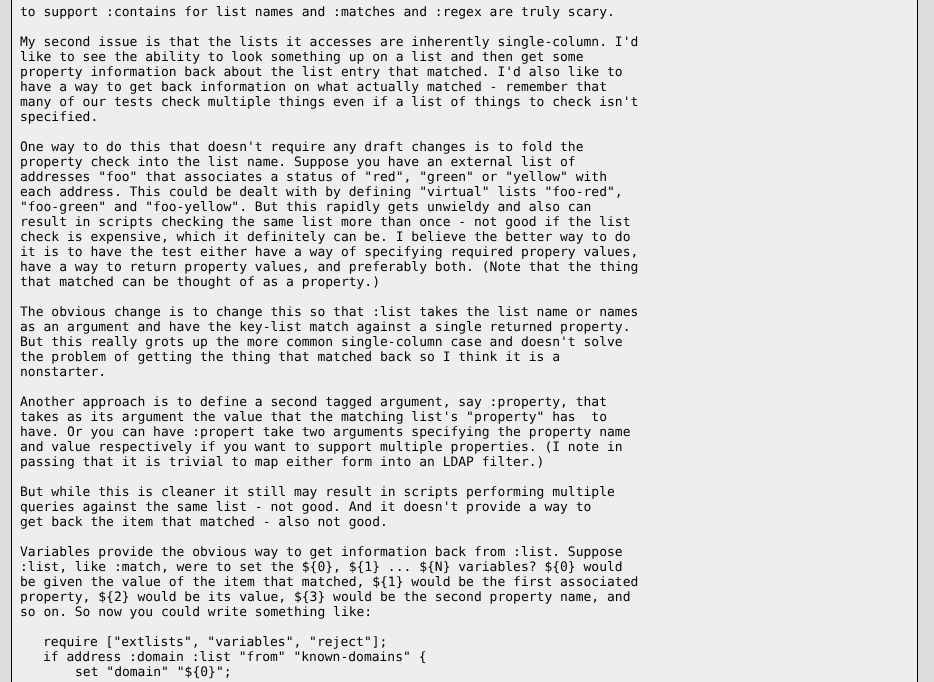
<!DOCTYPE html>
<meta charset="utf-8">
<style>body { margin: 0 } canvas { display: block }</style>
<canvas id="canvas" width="934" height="682"></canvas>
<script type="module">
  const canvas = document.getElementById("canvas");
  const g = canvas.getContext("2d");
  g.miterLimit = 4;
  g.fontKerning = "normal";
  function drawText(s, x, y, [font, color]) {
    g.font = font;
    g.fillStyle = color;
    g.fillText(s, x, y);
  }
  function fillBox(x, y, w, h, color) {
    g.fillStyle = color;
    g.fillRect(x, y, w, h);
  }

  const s1 = ["13px DejaVu Sans Mono", "#000000"];

  fillBox(0, 0, 934, 682, "#DDDDDD");
  g.fillStyle = "#EEEEEE";
  g.beginPath();
  g.rect(11.5, -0.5, 906, 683);
  g.fill();
  g.strokeStyle = "#000000";
  g.stroke();
  drawText("to support :contains for list names and :matches and :regex are truly scary.", 20, 16, s1);
  drawText("My second issue is that the lists it accesses are inherently single-column. I'd", 20, 46, s1);
  drawText("like to see the ability to look something up on a list and then get some", 20, 61, s1);
  drawText("property information back about the list entry that matched. I'd also like to", 20, 76, s1);
  drawText("have a way to get back information on what actually matched - remember that", 20, 91, s1);
  drawText("many of our tests check multiple things even if a list of things to check isn't", 20, 106, s1);
  drawText("specified.", 20, 121, s1);
  drawText("One way to do this that doesn't require any draft changes is to fold the", 20, 151, s1);
  drawText("property check into the list name. Suppose you have an external list of", 20, 166, s1);
  drawText("addresses \"foo\" that associates a status of \"red\", \"green\" or \"yellow\" with", 20, 181, s1);
  drawText("each address. This could be dealt with by defining \"virtual\" lists \"foo-red\",", 20, 196, s1);
  drawText("\"foo-green\" and \"foo-yellow\". But this rapidly gets unwieldy and also can", 20, 211, s1);
  drawText("result in scripts checking the same list more than once - not good if the list", 20, 226, s1);
  drawText("check is expensive, which it definitely can be. I believe the better way to do", 20, 241, s1);
  drawText("it is to have the test either have a way of specifying required propery values,", 20, 256, s1);
  drawText("have a way to return property values, and preferably both. (Note that the thing", 20, 271, s1);
  drawText("that matched can be thought of as a property.)", 20, 286, s1);
  drawText("The obvious change is to change this so that :list takes the list name or names", 20, 316, s1);
  drawText("as an argument and have the key-list match against a single returned property.", 20, 331, s1);
  drawText("But this really grots up the more common single-column case and doesn't solve", 20, 346, s1);
  drawText("the problem of getting the thing that matched back so I think it is a", 20, 361, s1);
  drawText("nonstarter.", 20, 376, s1);
  drawText("Another approach is to define a second tagged argument, say :property, that", 20, 406, s1);
  drawText("takes as its argument the value that the matching list's \"property\" has  to", 20, 421, s1);
  drawText("have. Or you can have :propert take two arguments specifying the property name", 20, 436, s1);
  drawText("and value respectively if you want to support multiple properties. (I note in", 20, 451, s1);
  drawText("passing that it is trivial to map either form into an LDAP filter.)", 20, 466, s1);
  drawText("But while this is cleaner it still may result in scripts performing multiple", 20, 496, s1);
  drawText("queries against the same list - not good. And it doesn't provide a way to", 20, 511, s1);
  drawText("get back the item that matched - also not good.", 20, 526, s1);
  drawText("Variables provide the obvious way to get information back from :list. Suppose", 20, 556, s1);
  drawText(":list, like :match, were to set the ${0}, ${1} ... ${N} variables? ${0} would", 20, 571, s1);
  drawText("be given the value of the item that matched, ${1} would be the first associated", 20, 586, s1);
  drawText("property, ${2} would be its value, ${3} would be the second property name, and", 20, 601, s1);
  drawText("so on. So now you could write something like:", 20, 616, s1);
  drawText("require [\"extlists\", \"variables\", \"reject\"];", 43, 646, s1);
  drawText("if address :domain :list \"from\" \"known-domains\" {", 43, 661, s1);
  drawText("set \"domain\" \"${0}\";", 75, 676, s1);
</script>
